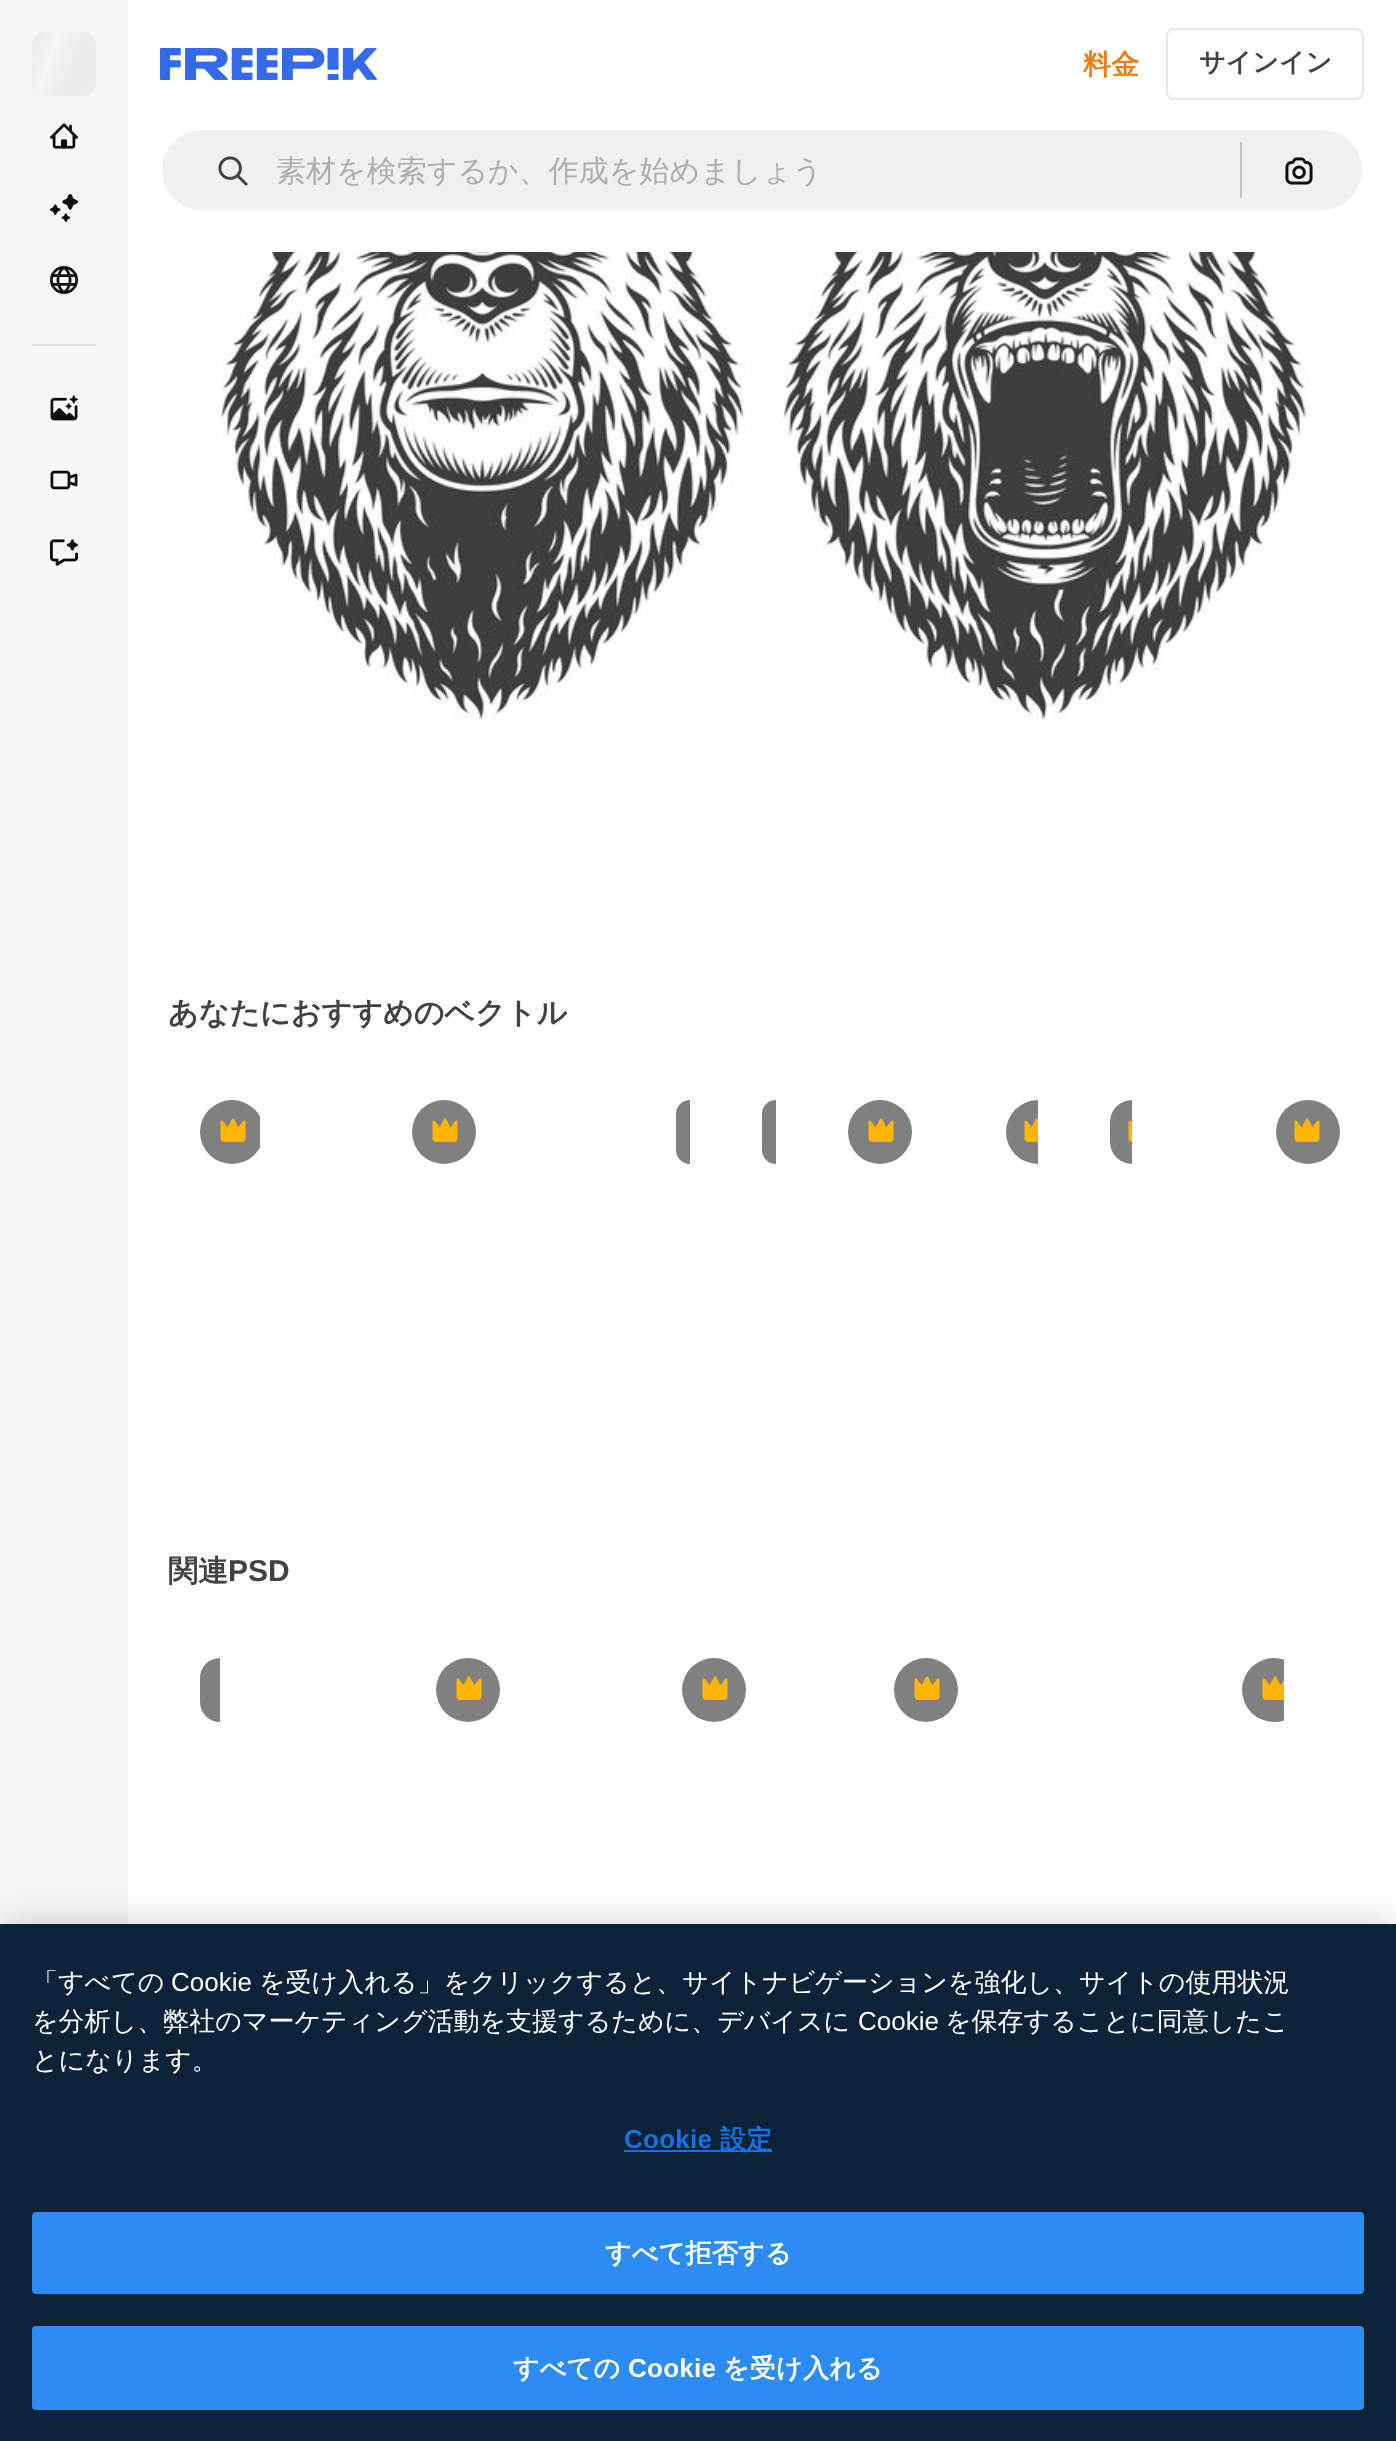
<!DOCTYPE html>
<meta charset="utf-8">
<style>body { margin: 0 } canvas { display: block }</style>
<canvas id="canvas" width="1396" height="2441"></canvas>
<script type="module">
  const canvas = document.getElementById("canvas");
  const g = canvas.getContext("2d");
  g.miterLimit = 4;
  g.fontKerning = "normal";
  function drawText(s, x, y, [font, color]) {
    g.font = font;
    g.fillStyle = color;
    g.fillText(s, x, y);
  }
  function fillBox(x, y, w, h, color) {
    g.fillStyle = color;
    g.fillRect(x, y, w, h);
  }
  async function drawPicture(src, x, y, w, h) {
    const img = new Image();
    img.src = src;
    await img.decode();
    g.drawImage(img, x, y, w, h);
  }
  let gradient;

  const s1 = ["bold 28px WenQuanYi Zen Hei", "#EA7E11"];
  const s2 = ["bold 26px WenQuanYi Zen Hei", "#424242"];
  const s3 = ["500 30px WenQuanYi Zen Hei", "#ADADAD"];
  const s4 = ["bold 30px WenQuanYi Zen Hei", "#424242"];
  const s5 = ["bold 30px Liberation Sans", "#424242"];
  const s6 = ["500 26px WenQuanYi Zen Hei", "#FFFFFF"];
  const s7 = ["26px Liberation Sans", "#FFFFFF"];
  const s8 = ["bold 26px Liberation Sans", "#1273EB"];
  const s9 = ["bold 26px WenQuanYi Zen Hei", "#1273EB"];
  const s10 = ["bold 26px WenQuanYi Zen Hei", "#FFFFFF"];
  const s11 = ["bold 26px Liberation Sans", "#FFFFFF"];

  fillBox(0, 0, 1396, 2441, "#FFFFFF");
  fillBox(0, 0, 128, 1924, "#F7F7F7");
  gradient = g.createLinearGradient(29, 40, 163, 88);
  gradient.addColorStop(0.08, "#ECECEC");
  gradient.addColorStop(0.18, "#F5F5F5");
  gradient.addColorStop(0.33, "#ECECEC");
  g.fillStyle = gradient;
  g.beginPath();
  g.roundRect(32, 32, 64, 64, 12);
  g.fill();
  await drawPicture("pic1.png", 50, 123, 28, 26);
  await drawPicture("pic2.png", 50, 194, 28, 28);
  await drawPicture("pic3.png", 50, 266, 28, 28);
  fillBox(32, 344, 64, 2, "#E0E0E0");
  await drawPicture("pic4.png", 50, 395, 28, 26);
  await drawPicture("pic5.png", 50, 470, 28, 20);
  await drawPicture("pic6.png", 50, 539, 28, 27);
  await drawPicture("pic7.png", 160, 48, 218, 32);
  drawText("料金", 1083, 74, s1);
  g.beginPath();
  g.roundRect(1167, 29, 196, 70, 7);
  g.strokeStyle = "#E7E7E7";
  g.lineWidth = 2;
  g.stroke();
  drawText("サインイン", 1199, 71, s2);
  g.fillStyle = "#F0F0F0";
  g.beginPath();
  g.roundRect(161, 129, 1202, 82, 41);
  g.fill();
  g.strokeStyle = "#FFFFFF";
  g.stroke();
  await drawPicture("pic8.png", 218, 156, 30, 30);
  drawText("素材を検索するか、作成を始めましょう", 276, 181, s3);
  fillBox(1240, 142, 2, 56, "#C3C3C3");
  await drawPicture("pic9.png", 1285, 157, 28, 28);
  await drawPicture("pic10.png", 220, 252, 1089, 469);
  drawText("あなたにおすすめのベクトル", 168, 1023, s4);
  g.save();
  g.beginPath();
  g.roundRect(168, 1068, 92, 400, 32);
  g.clip();
  g.fillStyle = "#808080";
  g.beginPath();
  g.arc(232, 1132, 32, 0, Math.PI * 2);
  g.fill();
  g.restore();
  await drawPicture("pic11.png", 220, 1118, 26, 24);
  g.fillStyle = "#808080";
  g.beginPath();
  g.arc(444, 1132, 32, 0, Math.PI * 2);
  g.fill();
  await drawPicture("pic11.png", 432, 1118, 26, 24);
  g.beginPath();
  g.roundRect(676, 1100, 14, 64, [32, 0, 0, 32]);
  g.fill();
  g.beginPath();
  g.roundRect(762, 1100, 14, 64, [32, 0, 0, 32]);
  g.fill();
  g.beginPath();
  g.arc(880, 1132, 32, 0, Math.PI * 2);
  g.fill();
  await drawPicture("pic11.png", 868, 1118, 26, 24);
  g.beginPath();
  g.roundRect(1006, 1100, 32, 64, [32, 0, 0, 32]);
  g.fill();
  await drawPicture("pic12.png", 1024, 1118, 14, 24);
  g.beginPath();
  g.roundRect(1110, 1100, 22, 64, [32, 0, 0, 32]);
  g.fill();
  await drawPicture("pic13.png", 1128, 1120, 4, 22);
  g.beginPath();
  g.arc(1308, 1132, 32, 0, Math.PI * 2);
  g.fill();
  await drawPicture("pic11.png", 1294, 1118, 26, 24);
  drawText("関連", 168, 1581, s4);
  drawText("PSD", 228, 1581, s5);
  g.fillStyle = "#808080";
  g.beginPath();
  g.roundRect(200, 1658, 20, 64, [32, 0, 0, 32]);
  g.fill();
  g.beginPath();
  g.arc(468, 1690, 32, 0, Math.PI * 2);
  g.fill();
  await drawPicture("pic11.png", 456, 1676, 26, 24);
  g.beginPath();
  g.arc(714, 1690, 32, 0, Math.PI * 2);
  g.fill();
  await drawPicture("pic11.png", 702, 1676, 26, 24);
  g.beginPath();
  g.arc(926, 1690, 32, 0, Math.PI * 2);
  g.fill();
  await drawPicture("pic11.png", 914, 1676, 26, 24);
  g.save();
  g.beginPath();
  g.roundRect(1210, 1626, 74, 400, 32);
  g.clip();
  g.beginPath();
  g.arc(1274, 1690, 32, 0, Math.PI * 2);
  g.fill();
  g.restore();
  await drawPicture("pic14.png", 1262, 1676, 22, 24);
  g.fillStyle = "rgba(0, 0, 0, 0.2)";
  g.filter = "blur(18px)";
  g.beginPath();
  g.rect(0, 1924, 1396, 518);
  g.fill();
  g.filter = "none";
  fillBox(0, 1924, 1396, 517, "#0B2239");
  drawText("「すべての", 32, 1991, s6);
  drawText("Cookie", 171, 1991, s7);
  drawText("を受け入れる」をクリックすると、サイトナビゲーションを強化し、サイトの使用状況", 259, 1991, s6);
  drawText("を分析し、弊社のマーケティング活動を支援するために、デバイスに", 32, 2030, s6);
  drawText("Cookie", 858, 2030, s7);
  drawText("を保存することに同意したこ", 945, 2030, s6);
  drawText("とになります。", 32, 2069, s6);
  g.letterSpacing = "0.25px";
  drawText("Cookie", 624, 2148, s8);
  fillBox(624, 2150, 148, 2, "#1273EB");
  drawText("設定", 720, 2148, s9);
  g.fillStyle = "#2C8CF4";
  g.beginPath();
  g.roundRect(33, 2213, 1330, 80, 3);
  g.fill();
  g.strokeStyle = "#2C8CF4";
  g.stroke();
  drawText("すべて拒否する", 605, 2262, s10);
  g.fillStyle = "#2C8CF4";
  g.beginPath();
  g.roundRect(33, 2327, 1330, 82, 3);
  g.fill();
  g.stroke();
  drawText("すべての", 513, 2377, s10);
  drawText("Cookie", 628, 2377, s11);
  drawText("を受け入れる", 723, 2377, s10);
</script>
